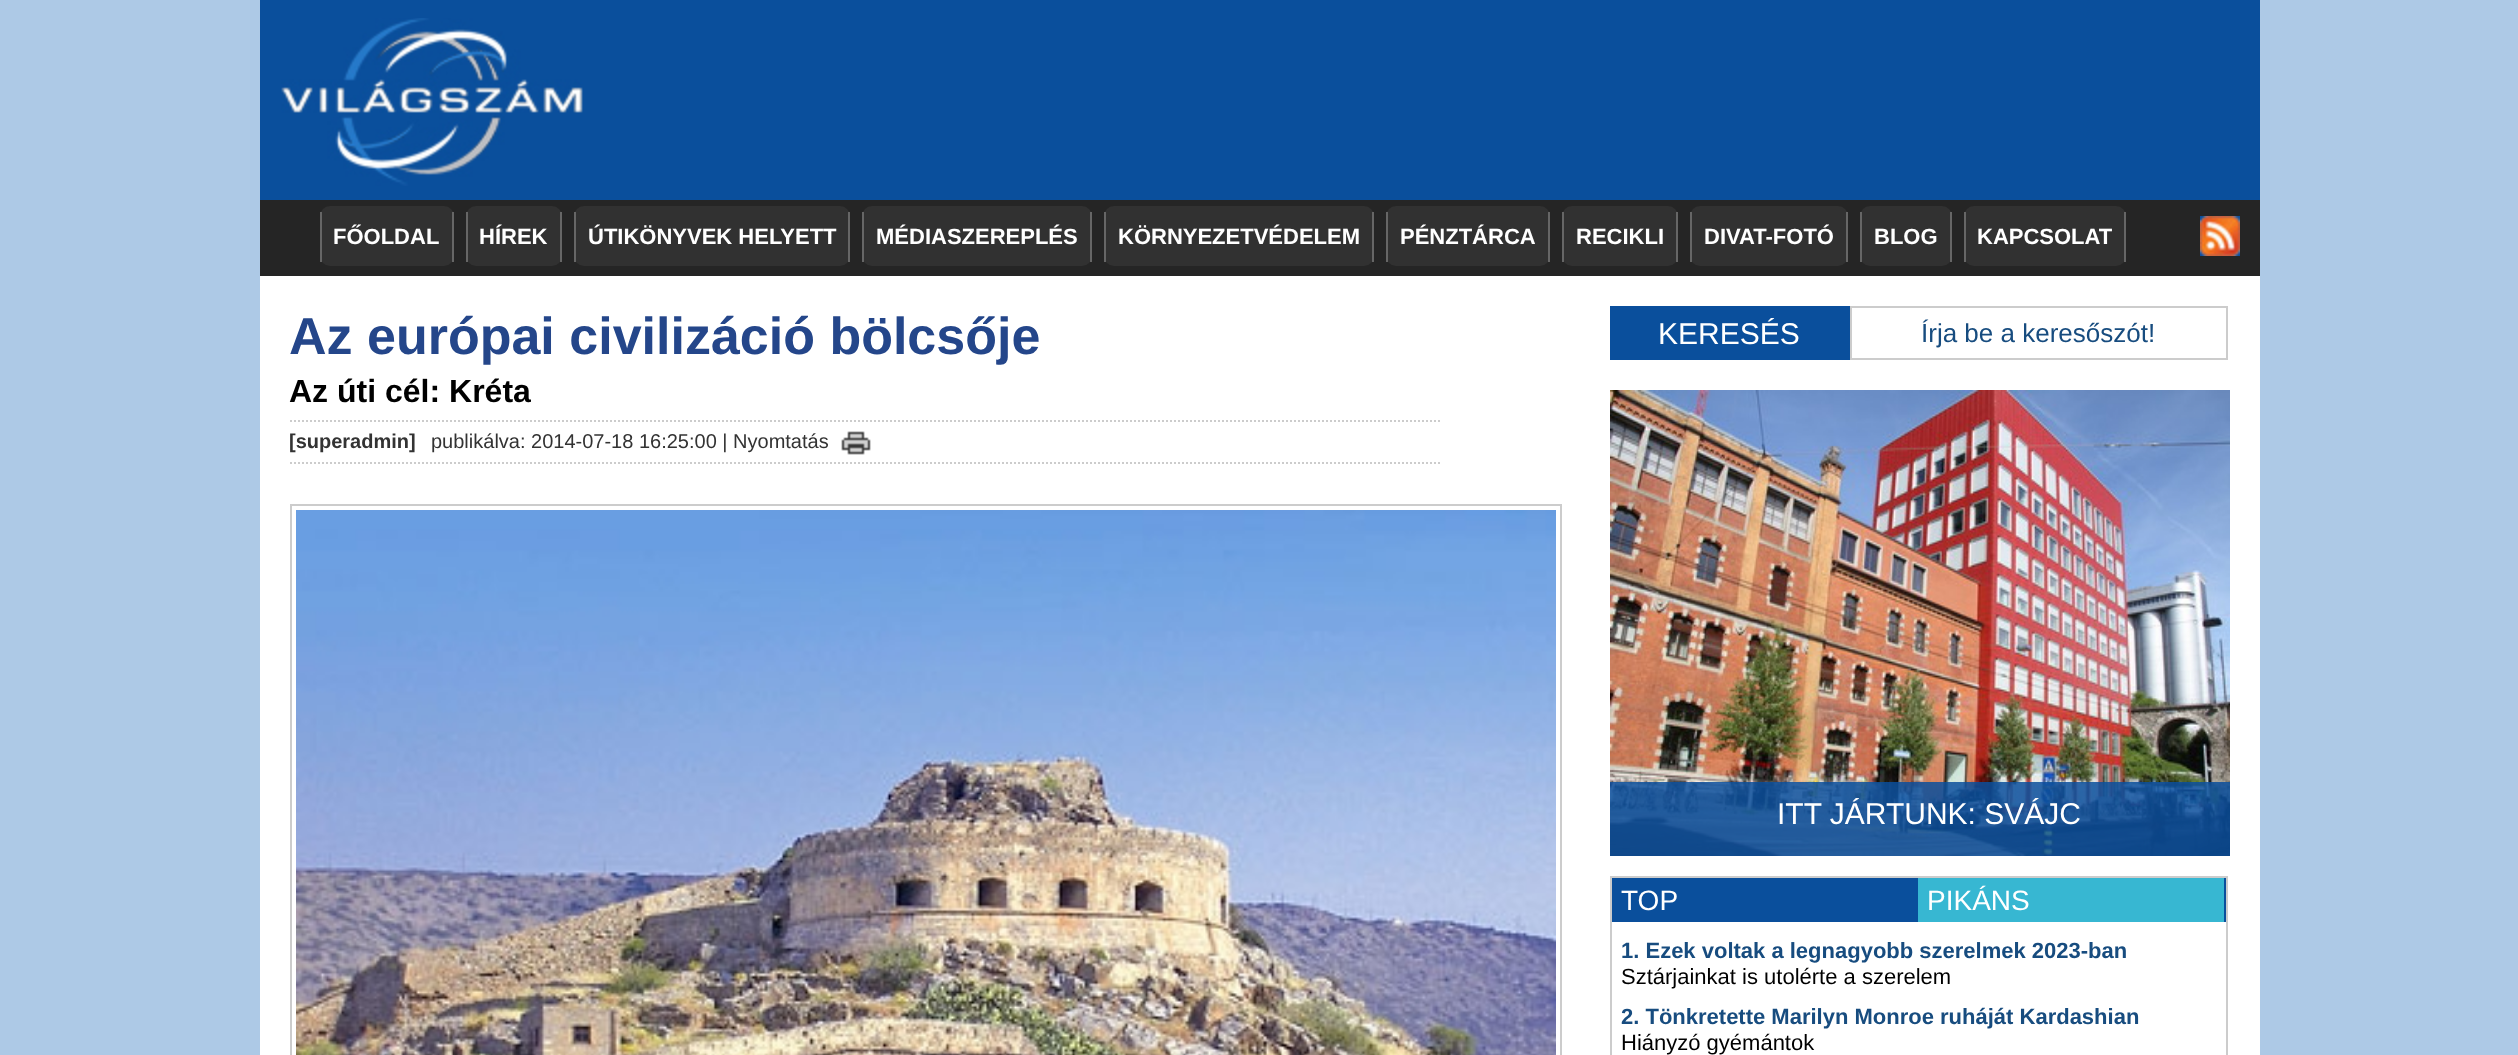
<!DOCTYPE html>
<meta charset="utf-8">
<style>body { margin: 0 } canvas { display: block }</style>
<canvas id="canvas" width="2518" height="1055"></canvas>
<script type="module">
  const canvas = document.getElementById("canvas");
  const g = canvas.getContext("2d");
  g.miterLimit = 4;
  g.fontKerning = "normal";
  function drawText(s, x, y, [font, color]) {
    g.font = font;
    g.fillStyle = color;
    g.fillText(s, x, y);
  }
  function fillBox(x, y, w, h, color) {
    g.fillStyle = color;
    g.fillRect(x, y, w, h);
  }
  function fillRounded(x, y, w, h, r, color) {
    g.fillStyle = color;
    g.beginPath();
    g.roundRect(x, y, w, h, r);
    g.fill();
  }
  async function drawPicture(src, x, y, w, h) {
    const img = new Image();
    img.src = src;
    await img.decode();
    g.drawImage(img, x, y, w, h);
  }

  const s1 = ["bold 22px Liberation Sans", "#FFFFFF"];
  const s2 = ["bold 52px Liberation Sans", "#24468A"];
  const s3 = ["bold 32px Liberation Sans", "#000000"];
  const s4 = ["bold 20px Liberation Sans", "#333333"];
  const s5 = ["20px Liberation Sans", "#333333"];
  const s6 = ["30px Liberation Sans", "#FFFFFF"];
  const s7 = ["26px Liberation Sans", "#174C7F"];
  const s8 = ["28px Liberation Sans", "#FFFFFF"];
  const s9 = ["bold 22px Liberation Sans", "#174C7F"];
  const s10 = ["22px Liberation Sans", "#000000"];

  fillBox(0, 0, 2518, 1055, "#ADC9E6");
  fillBox(260, 276, 2000, 779, "#FFFFFF");
  fillBox(260, 0, 2000, 200, "#0A4F9C");
  await drawPicture("pic1.png", 281, 18, 302, 168);
  fillBox(260, 200, 2000, 76, "#252525");
  fillRounded(320, 206, 134, 60, 10, "#313131");
  fillBox(452, 212, 2, 50, "#666666");
  fillBox(320, 212, 2, 50, "#666666");
  drawText("FŐOLDAL", 333, 244, s1);
  fillRounded(466, 206, 96, 60, 10, "#313131");
  fillBox(560, 212, 2, 50, "#666666");
  fillBox(466, 212, 2, 50, "#666666");
  drawText("HÍREK", 479, 244, s1);
  fillRounded(574, 206, 276, 60, 10, "#313131");
  fillBox(848, 212, 2, 50, "#666666");
  fillBox(574, 212, 2, 50, "#666666");
  drawText("ÚTIKÖNYVEK HELYETT", 588, 244, s1);
  fillRounded(862, 206, 230, 60, 10, "#313131");
  fillBox(1090, 212, 2, 50, "#666666");
  fillBox(862, 212, 2, 50, "#666666");
  drawText("MÉDIASZEREPLÉS", 876, 244, s1);
  fillRounded(1104, 206, 270, 60, 10, "#313131");
  fillBox(1372, 212, 2, 50, "#666666");
  fillBox(1104, 212, 2, 50, "#666666");
  drawText("KÖRNYEZETVÉDELEM", 1118, 244, s1);
  fillRounded(1386, 206, 164, 60, 10, "#313131");
  fillBox(1548, 212, 2, 50, "#666666");
  fillBox(1386, 212, 2, 50, "#666666");
  drawText("PÉNZTÁRCA", 1400, 244, s1);
  fillRounded(1562, 206, 116, 60, 10, "#313131");
  fillBox(1676, 212, 2, 50, "#666666");
  fillBox(1562, 212, 2, 50, "#666666");
  drawText("RECIKLI", 1576, 244, s1);
  fillRounded(1690, 206, 158, 60, 10, "#313131");
  fillBox(1846, 212, 2, 50, "#666666");
  fillBox(1690, 212, 2, 50, "#666666");
  drawText("DIVAT-FOTÓ", 1704, 244, s1);
  fillRounded(1860, 206, 92, 60, 10, "#313131");
  fillBox(1950, 212, 2, 50, "#666666");
  fillBox(1860, 212, 2, 50, "#666666");
  drawText("BLOG", 1874, 244, s1);
  fillRounded(1964, 206, 162, 60, 10, "#313131");
  fillBox(2124, 212, 2, 50, "#666666");
  fillBox(1964, 212, 2, 50, "#666666");
  drawText("KAPCSOLAT", 1977, 244, s1);
  await drawPicture("pic2.png", 2200, 216, 40, 40);
  drawText("Az európai civilizáció bölcsője", 289, 354, s2);
  drawText("Az úti cél: Kréta", 289, 402, s3);
  g.beginPath();
  g.moveTo(290, 421);
  g.lineTo(1440, 421);
  g.strokeStyle = "#CCCCCC";
  g.lineWidth = 2;
  g.setLineDash([2, 2]);
  g.stroke();
  g.beginPath();
  g.moveTo(290, 463);
  g.lineTo(1440, 463);
  g.stroke();
  drawText("[superadmin]", 289, 448, s4);
  drawText("publikálva: 2014-07-18 16:25:00 | Nyomtatás", 431, 448, s5);
  await drawPicture("pic3.png", 841, 431, 30, 24);
  g.setLineDash([]);
  g.strokeRect(291, 505, 1270, 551);
  await drawPicture("pic4.png", 296, 510, 1260, 545);
  fillBox(1610, 306, 240, 54, "#0A4F9C");
  drawText("KERESÉS", 1658, 344, s6);
  g.strokeRect(1851, 307, 376, 52);
  drawText("Írja be a keresőszót!", 1921, 342, s7);
  await drawPicture("pic5.png", 1610, 390, 620, 466);
  fillBox(1610, 782, 620, 74, "rgba(11, 79, 156, 0.85)");
  drawText("ITT JÁRTUNK: SVÁJC", 1777, 824, s6);
  g.strokeRect(1611, 877, 616, 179);
  fillBox(1612, 878, 614, 44, "#0A4F9C");
  drawText("TOP", 1621, 910, s8);
  fillBox(1918, 878, 306, 44, "#37B7D2");
  drawText("PIKÁNS", 1927, 910, s8);
  drawText("1. Ezek voltak a legnagyobb szerelmek 2023-ban", 1621, 958, s9);
  drawText("Sztárjainkat is utolérte a szerelem", 1621, 984, s10);
  drawText("2. Tönkretette Marilyn Monroe ruháját Kardashian", 1621, 1024, s9);
  drawText("Hiányzó gyémántok", 1621, 1050, s10);
</script>
